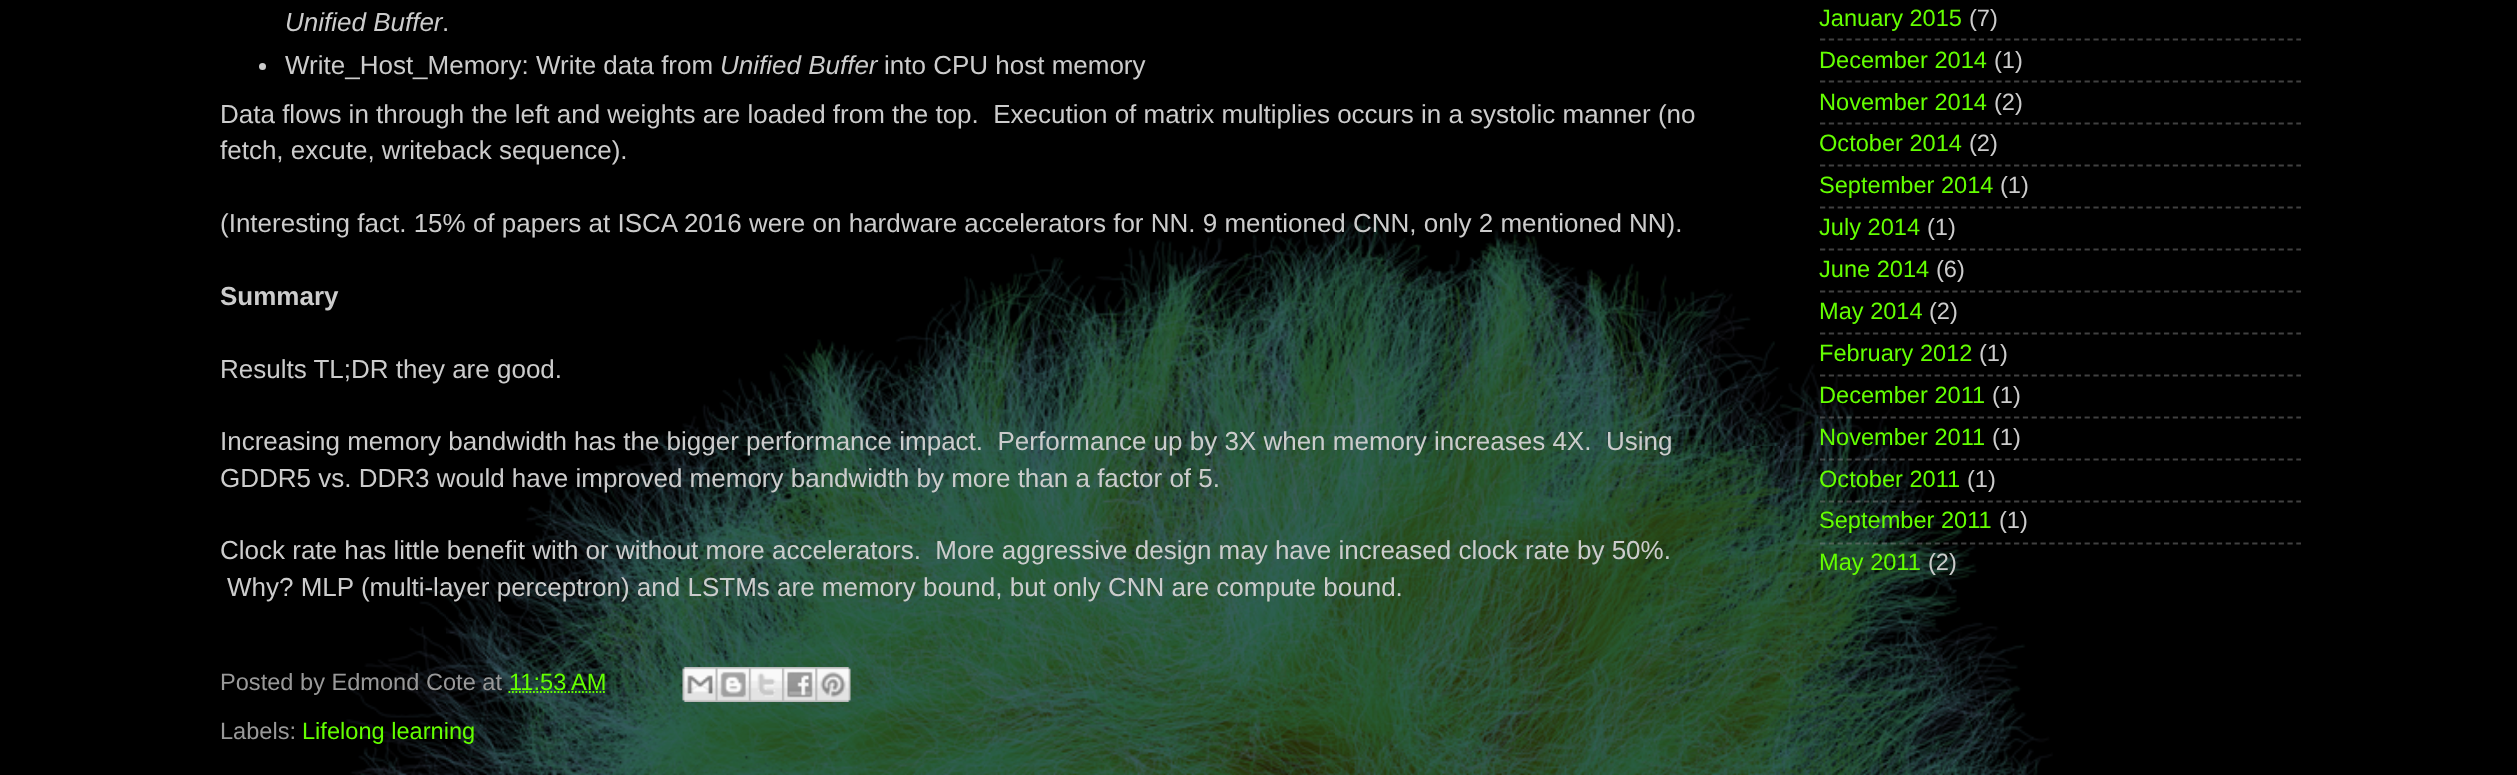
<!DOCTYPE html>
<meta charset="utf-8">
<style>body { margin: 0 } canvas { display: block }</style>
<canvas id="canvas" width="2517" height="775"></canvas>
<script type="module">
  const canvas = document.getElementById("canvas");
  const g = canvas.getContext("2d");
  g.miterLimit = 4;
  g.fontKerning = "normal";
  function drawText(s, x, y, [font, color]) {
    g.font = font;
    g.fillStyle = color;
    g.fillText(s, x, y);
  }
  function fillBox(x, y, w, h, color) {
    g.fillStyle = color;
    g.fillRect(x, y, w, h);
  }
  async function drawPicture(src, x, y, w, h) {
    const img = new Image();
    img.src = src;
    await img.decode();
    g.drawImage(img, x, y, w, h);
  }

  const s1 = ["italic 26px Liberation Sans", "#CCCCCC"];
  const s2 = ["26px Liberation Sans", "#CCCCCC"];
  const s3 = ["bold 26px Liberation Sans", "#CCCCCC"];
  const s4 = ["23.6px Liberation Sans", "#999999"];
  const s5 = ["23.6px Liberation Sans", "#64FF00"];
  const s6 = ["23.6px Liberation Sans", "#CCCCCC"];

  fillBox(0, 0, 2517, 775, "#000000");
  await drawPicture("pic1.png", 344, 213, 1709, 562);
  drawText("Unified Buffer", 285, 31, s1);
  drawText(".", 442, 31, s2);
  g.beginPath();
  g.arc(262.5, 66.5, 3.5, 0, Math.PI * 2);
  g.fill();
  drawText("Write_Host_Memory: Write data from", 285, 74, s2);
  drawText("Unified Buffer", 720, 74, s1);
  drawText("into CPU host memory", 884, 74, s2);
  drawText("Data flows in through the left and weights are loaded from the top.  Execution of matrix multiplies occurs in a systolic manner (no", 220, 123, s2);
  drawText("fetch, excute, writeback sequence).", 220, 159, s2);
  drawText("(Interesting fact. 15% of papers at ISCA 2016 were on hardware accelerators for NN. 9 mentioned CNN, only 2 mentioned NN).", 220, 232, s2);
  drawText("Summary", 220, 305, s3);
  drawText("Results TL;DR they are good.", 220, 378, s2);
  drawText("Increasing memory bandwidth has the bigger performance impact.  Performance up by 3X when memory increases 4X.  Using", 220, 450, s2);
  drawText("GDDR5 vs. DDR3 would have improved memory bandwidth by more than a factor of 5.", 220, 487, s2);
  drawText("Clock rate has little benefit with or without more accelerators.  More aggressive design may have increased clock rate by 50%.", 220, 559, s2);
  drawText("Why? MLP (multi-layer perceptron) and LSTMs are memory bound, but only CNN are compute bound.", 227, 596, s2);
  drawText("Posted by Edmond Cote at", 220, 690, s4);
  drawText("11:53 AM", 509, 690, s5);
  g.beginPath();
  g.moveTo(508.5, 692);
  g.lineTo(606, 692);
  g.strokeStyle = "#64FF00";
  g.lineWidth = 1.8;
  g.setLineDash([1.75, 1.75]);
  g.stroke();
  await drawPicture("pic2.png", 682, 667, 34, 35);
  await drawPicture("pic3.png", 715, 667, 34, 35);
  await drawPicture("pic4.png", 749, 667, 34, 35);
  await drawPicture("pic5.png", 782, 667, 34, 35);
  await drawPicture("pic6.png", 815, 667, 36, 35);
  drawText("Labels:", 220, 739, s4);
  drawText("Lifelong learning", 302, 739, s5);
  drawText("January 2015", 1819, 26, s5);
  drawText("(7)", 1969, 26, s6);
  g.beginPath();
  g.moveTo(1820, 39.5);
  g.lineTo(2301, 39.5);
  g.strokeStyle = "#404040";
  g.setLineDash([5.25, 3.57]);
  g.stroke();
  drawText("December 2014", 1819, 68, s5);
  drawText("(1)", 1994, 68, s6);
  g.beginPath();
  g.moveTo(1820, 81.5);
  g.lineTo(2301, 81.5);
  g.stroke();
  drawText("November 2014", 1819, 110, s5);
  drawText("(2)", 1994, 110, s6);
  g.beginPath();
  g.moveTo(1820, 123.5);
  g.lineTo(2301, 123.5);
  g.stroke();
  drawText("October 2014", 1819, 151, s5);
  drawText("(2)", 1969, 151, s6);
  g.beginPath();
  g.moveTo(1820, 165.5);
  g.lineTo(2301, 165.5);
  g.stroke();
  drawText("September 2014", 1819, 193, s5);
  drawText("(1)", 2000, 193, s6);
  g.beginPath();
  g.moveTo(1820, 207.5);
  g.lineTo(2301, 207.5);
  g.stroke();
  drawText("July 2014", 1819, 235, s5);
  drawText("(1)", 1927, 235, s6);
  g.beginPath();
  g.moveTo(1820, 249.5);
  g.lineTo(2301, 249.5);
  g.stroke();
  drawText("June 2014", 1819, 277, s5);
  drawText("(6)", 1936, 277, s6);
  g.beginPath();
  g.moveTo(1820, 291.5);
  g.lineTo(2301, 291.5);
  g.stroke();
  drawText("May 2014", 1819, 319, s5);
  drawText("(2)", 1929, 319, s6);
  g.beginPath();
  g.moveTo(1820, 333.5);
  g.lineTo(2301, 333.5);
  g.stroke();
  drawText("February 2012", 1819, 361, s5);
  drawText("(1)", 1979, 361, s6);
  g.beginPath();
  g.moveTo(1820, 375.5);
  g.lineTo(2301, 375.5);
  g.strokeStyle = "rgba(128, 128, 128, 0.5)";
  g.stroke();
  drawText("December 2011", 1819, 403, s5);
  drawText("(1)", 1992, 403, s6);
  g.beginPath();
  g.moveTo(1820, 417.5);
  g.lineTo(2301, 417.5);
  g.stroke();
  drawText("November 2011", 1819, 445, s5);
  drawText("(1)", 1992, 445, s6);
  g.beginPath();
  g.moveTo(1820, 459.5);
  g.lineTo(2301, 459.5);
  g.stroke();
  drawText("October 2011", 1819, 487, s5);
  drawText("(1)", 1967, 487, s6);
  g.beginPath();
  g.moveTo(1820, 501.5);
  g.lineTo(2301, 501.5);
  g.stroke();
  drawText("September 2011", 1819, 528, s5);
  drawText("(1)", 1999, 528, s6);
  g.beginPath();
  g.moveTo(1820, 543.5);
  g.lineTo(2301, 543.5);
  g.stroke();
  drawText("May 2011", 1819, 570, s5);
  drawText("(2)", 1928, 570, s6);
</script>
